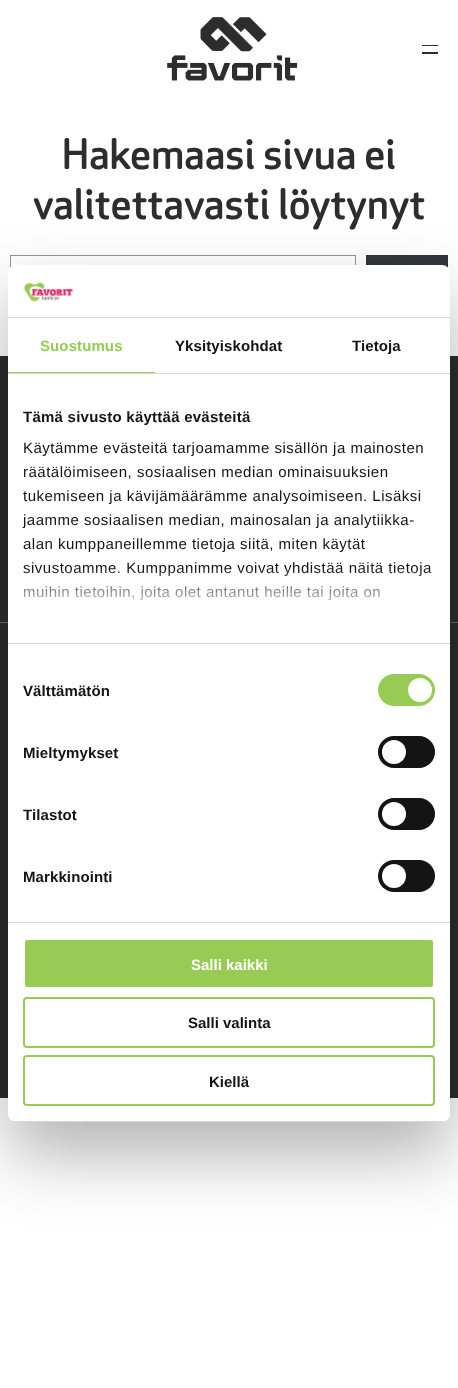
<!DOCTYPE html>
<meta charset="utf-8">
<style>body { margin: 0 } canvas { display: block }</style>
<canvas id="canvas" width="458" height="1388"></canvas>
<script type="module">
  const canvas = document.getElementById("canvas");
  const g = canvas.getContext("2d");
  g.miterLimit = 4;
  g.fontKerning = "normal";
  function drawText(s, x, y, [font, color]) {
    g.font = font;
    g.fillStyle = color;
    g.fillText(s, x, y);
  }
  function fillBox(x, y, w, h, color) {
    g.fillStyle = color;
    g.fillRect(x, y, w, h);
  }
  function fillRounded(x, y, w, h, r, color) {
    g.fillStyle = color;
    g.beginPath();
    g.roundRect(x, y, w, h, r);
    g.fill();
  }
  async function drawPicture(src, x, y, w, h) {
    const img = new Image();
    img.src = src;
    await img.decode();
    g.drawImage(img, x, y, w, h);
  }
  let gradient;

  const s1 = ["500 41.5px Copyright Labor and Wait", "#2D2D2D"];
  const s2 = ["bold 15px Liberation Sans", "#97CB54"];
  const s3 = ["bold 15px Liberation Sans", "#141414"];
  const s4 = ["15px Liberation Sans", "#141414"];
  const s5 = ["bold 15px Liberation Sans", "#FFFFFF"];

  fillBox(0, 0, 458, 1388, "#FFFFFF");
  await drawPicture("pic1.png", 167, 17, 131, 64);
  fillBox(422, 45, 16, 1, "#2D2D2D");
  fillBox(422, 52, 16, 2, "#2D2D2D");
  drawText("Hakemaasi sivua ei", 62, 169, s1);
  drawText("valitettavasti löytynyt", 33, 219, s1);
  g.strokeStyle = "#949494";
  g.strokeRect(10.5, 255.5, 345, 46);
  fillBox(366, 255, 82, 13, "#32373C");
  fillBox(0, 356, 458, 742, "#2D2D2D");
  fillBox(0, 622, 458, 1, "#686868");
  g.fillStyle = "rgba(0, 0, 0, 0.3)";
  g.filter = "blur(34px)";
  g.beginPath();
  g.roundRect(8, 297, 442, 857, 8);
  g.fill();
  g.filter = "none";
  fillRounded(8, 265, 442, 857, 8, "#FFFFFF");
  fillBox(8, 317, 442, 1, "#D6D6D6");
  await drawPicture("pic2.png", 24, 282, 50, 20);
  fillBox(8, 373, 442, 1, "#D6D6D6");
  fillBox(8, 372, 147, 1, "#97CB54");
  g.letterSpacing = "0.1px";
  drawText("Suostumus", 40, 351, s2);
  drawText("Yksityiskohdat", 175, 351, s3);
  drawText("Tietoja", 352, 351, s3);
  fillBox(8, 643, 442, 1, "#D6D6D6");
  g.letterSpacing = "0.25px";
  drawText("Tämä sivusto käyttää evästeitä", 23, 422, s3);
  g.letterSpacing = "0.5px";
  drawText("Käytämme evästeitä tarjoamamme sisällön ja mainosten", 23, 453, s4);
  drawText("räätälöimiseen, sosiaalisen median ominaisuuksien", 23, 477, s4);
  drawText("tukemiseen ja kävijämäärämme analysoimiseen. Lisäksi", 23, 501, s4);
  drawText("jaamme sosiaalisen median, mainosalan ja analytiikka-", 23, 525, s4);
  drawText("alan kumppaneillemme tietoja siitä, miten käytät", 23, 549, s4);
  drawText("sivustoamme. Kumppanimme voivat yhdistää näitä tietoja", 23, 573, s4);
  drawText("muihin tietoihin, joita olet antanut heille tai joita on", 23, 597, s4);
  gradient = g.createLinearGradient(223, 643, 223, 568);
  gradient.addColorStop(0, "#FFFFFF");
  gradient.addColorStop(0.5, "rgba(255, 255, 255, 0.8)");
  gradient.addColorStop(1, "rgba(255, 255, 255, 0)");
  g.fillStyle = gradient;
  g.fillRect(23, 569, 409, 32);
  fillBox(8, 922, 442, 1, "#D6D6D6");
  g.letterSpacing = "0.1px";
  drawText("Välttämätön", 23, 696, s3);
  fillRounded(378, 674, 57, 32, 16, "#97CB54");
  g.fillStyle = "#FFFFFF";
  g.beginPath();
  g.arc(420, 690, 12, 0, Math.PI * 2);
  g.fill();
  drawText("Mieltymykset", 23, 758, s3);
  fillRounded(378, 736, 57, 32, 16, "#141414");
  g.fillStyle = "#FFFFFF";
  g.beginPath();
  g.arc(394, 752, 12, 0, Math.PI * 2);
  g.fill();
  drawText("Tilastot", 23, 820, s3);
  fillRounded(378, 798, 57, 32, 16, "#141414");
  g.fillStyle = "#FFFFFF";
  g.beginPath();
  g.arc(394, 814, 12, 0, Math.PI * 2);
  g.fill();
  drawText("Markkinointi", 23, 882, s3);
  fillRounded(378, 860, 57, 32, 16, "#141414");
  g.fillStyle = "#FFFFFF";
  g.beginPath();
  g.arc(394, 876, 12, 0, Math.PI * 2);
  g.fill();
  g.save();
  g.beginPath();
  g.roundRect(8, 265, 442, 857, 8);
  g.clip();
  fillBox(8, 1121, 442, 1, "#D6D6D6");
  g.restore();
  g.fillStyle = "#97CB54";
  g.beginPath();
  g.roundRect(24, 939, 410, 49, 3);
  g.fill();
  g.strokeStyle = "#FFFFFF";
  g.lineWidth = 2;
  g.stroke();
  g.letterSpacing = "0px";
  drawText("Salli kaikki", 191, 970, s5);
  g.beginPath();
  g.roundRect(24, 998, 410, 49, 3);
  g.strokeStyle = "#97CB54";
  g.stroke();
  drawText("Salli valinta", 188, 1028, s3);
  g.beginPath();
  g.roundRect(24, 1056, 410, 49, 3);
  g.stroke();
  drawText("Kiellä", 209, 1087, s3);
</script>
